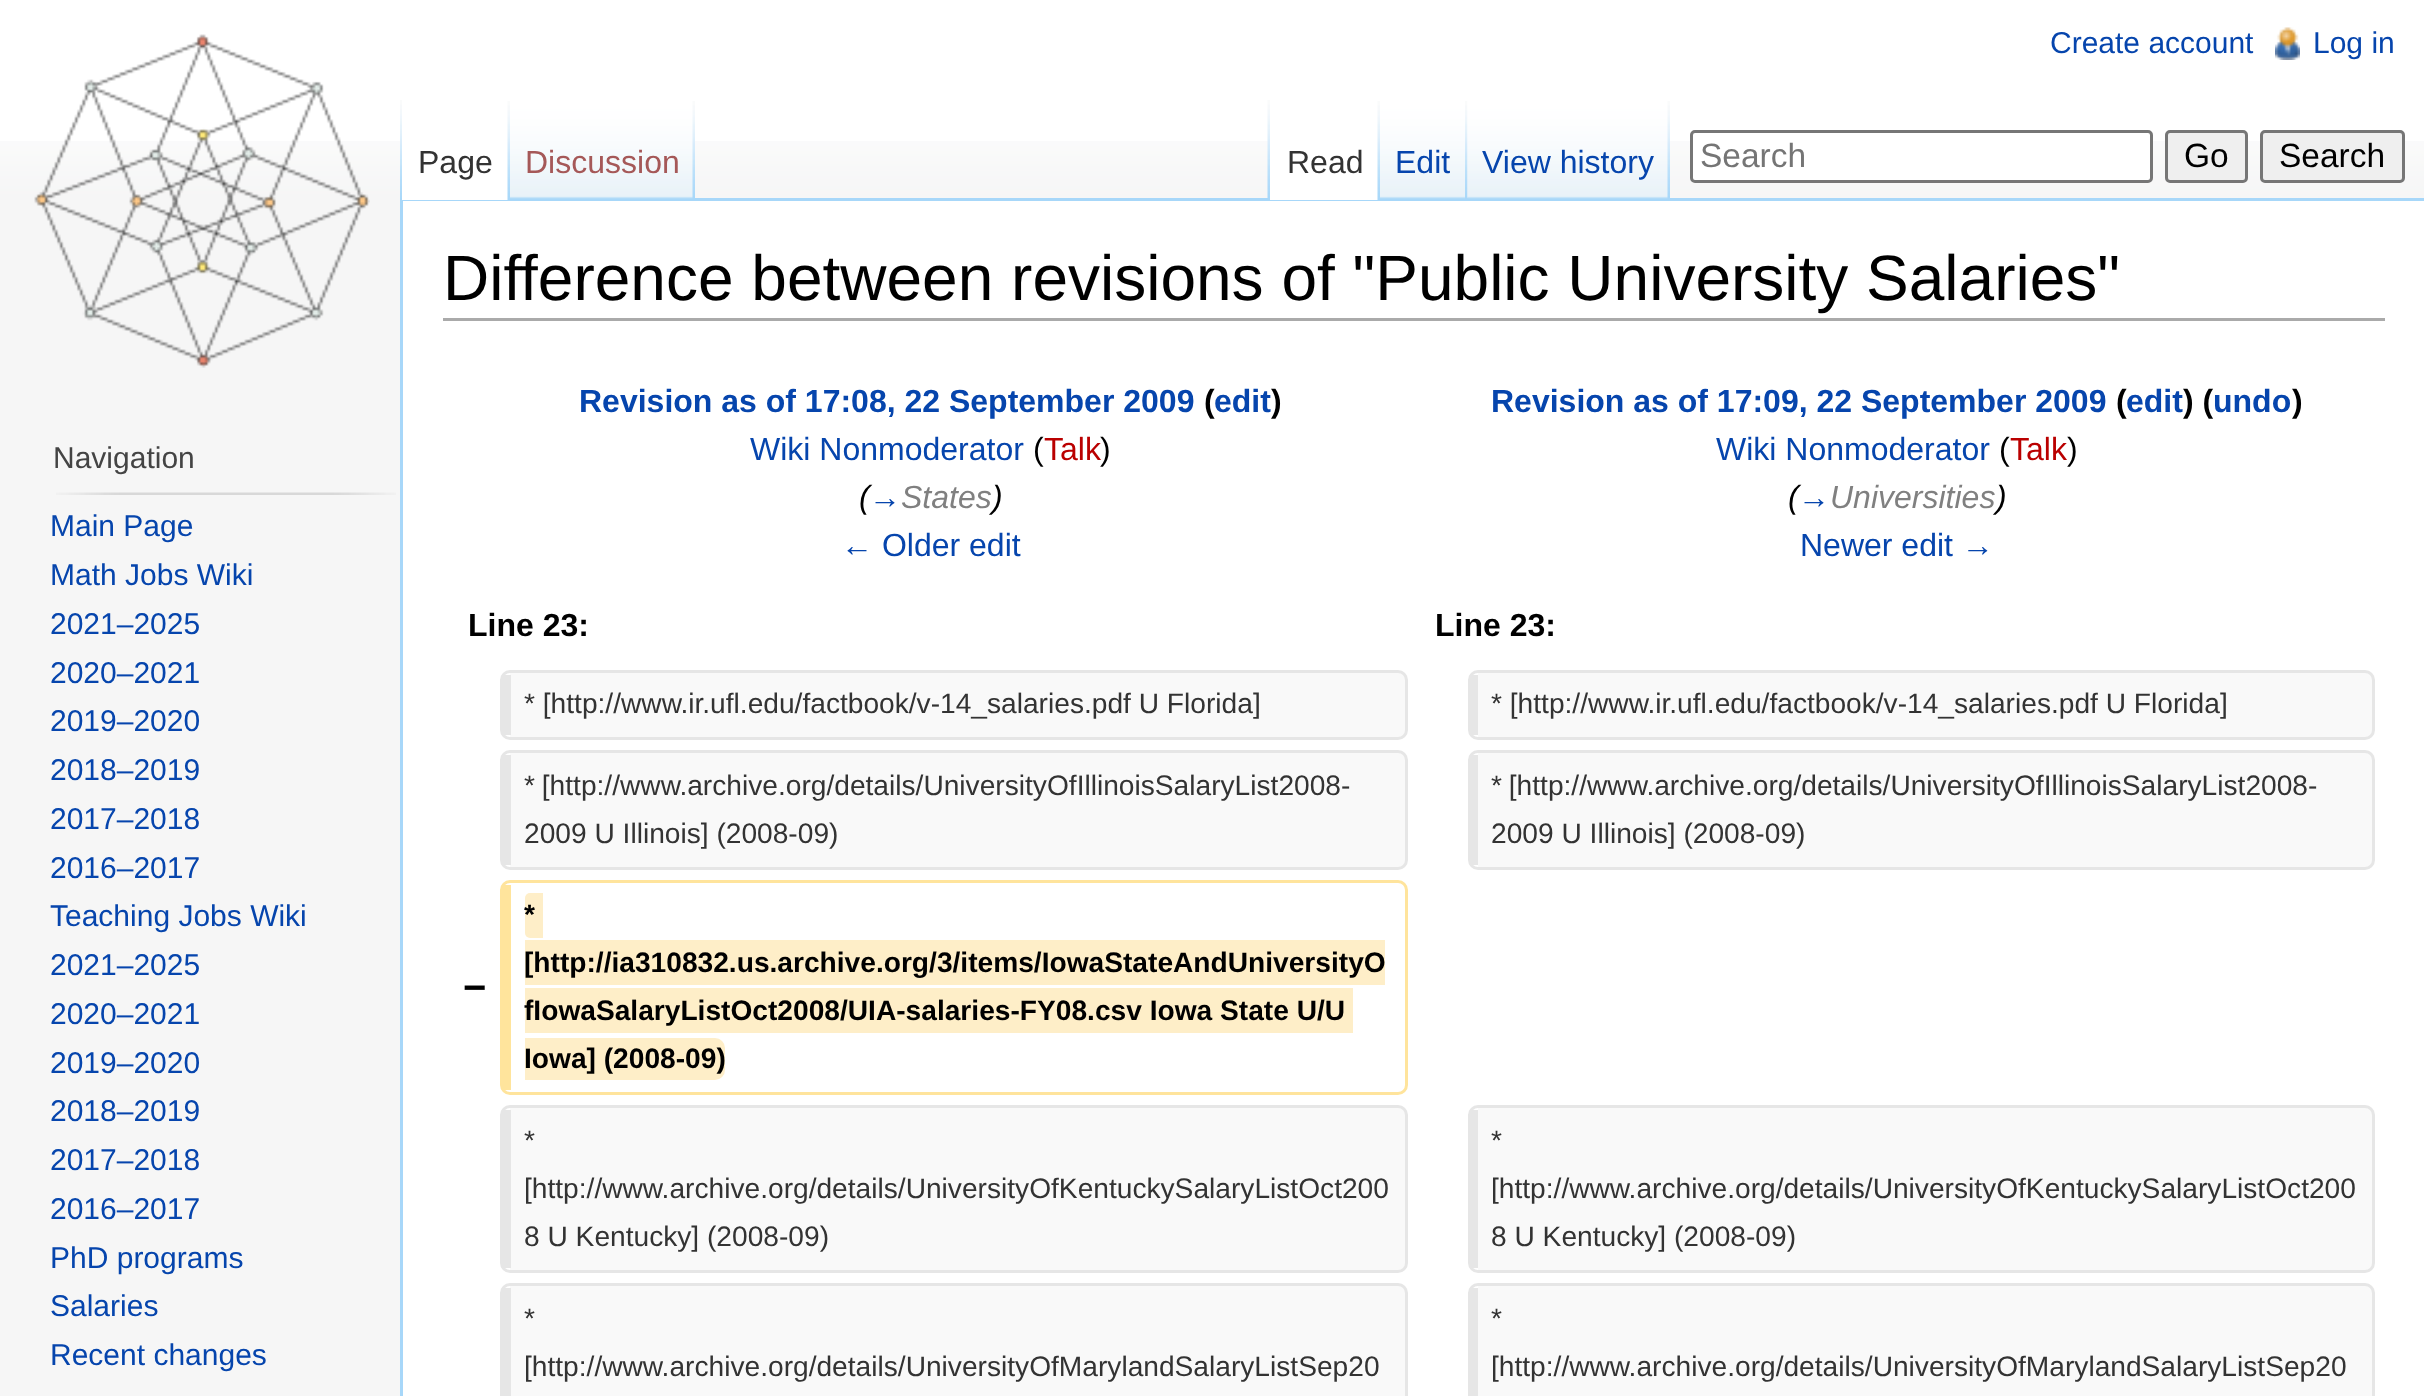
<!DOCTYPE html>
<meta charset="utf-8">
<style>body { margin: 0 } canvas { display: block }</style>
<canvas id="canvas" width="2424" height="1396"></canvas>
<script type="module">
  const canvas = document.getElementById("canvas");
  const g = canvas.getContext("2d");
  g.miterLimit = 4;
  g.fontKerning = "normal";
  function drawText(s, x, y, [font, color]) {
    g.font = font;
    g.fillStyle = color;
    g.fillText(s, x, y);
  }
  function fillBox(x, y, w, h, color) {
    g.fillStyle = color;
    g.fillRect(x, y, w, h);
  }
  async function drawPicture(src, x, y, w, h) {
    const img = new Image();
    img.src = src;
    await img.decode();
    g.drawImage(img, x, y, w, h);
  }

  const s1 = ["30px Liberation Sans", "#0645AD"];
  const s2 = ["32px Liberation Sans", "#333333"];
  const s3 = ["32px Liberation Sans", "#A55858"];
  const s4 = ["32px Liberation Sans", "#0645AD"];
  const s5 = ["33.5px Liberation Sans", "#757575"];
  const s6 = ["33.5px Liberation Sans", "#000000"];
  const s7 = ["30px Liberation Sans", "#444444"];
  const s8 = ["64px Liberation Sans", "#000000"];
  const s9 = ["bold 32px Liberation Sans", "#0645AD"];
  const s10 = ["bold 32px Liberation Sans", "#000000"];
  const s11 = ["32px Liberation Sans", "#000000"];
  const s12 = ["32px Liberation Sans", "#BA0000"];
  const s13 = ["italic 32px Liberation Sans", "#000000"];
  const s14 = ["italic 32px Liberation Sans", "#0645AD"];
  const s15 = ["italic 32px Liberation Sans", "#808080"];
  const s16 = ["28.15px Liberation Sans", "#333333"];
  const s17 = ["bold 40px Liberation Sans", "#000000"];
  const s18 = ["bold 28.15px Liberation Sans", "#000000"];

  fillBox(0, 0, 2424, 1396, "#F6F6F6");
  fillBox(0, 0, 2424, 141, "#FFFFFF");
  await drawPicture("pic1.png", 0, 141, 2424, 59);
  drawText("Create account", 2050, 53, s1);
  await drawPicture("pic2.png", 2275, 27, 25, 33);
  drawText("Log in", 2313, 53, s1);
  await drawPicture("pic3.png", 400, 100, 2, 98);
  fillBox(400, 198, 2024, 3, "#A7D7F9");
  fillBox(400, 198, 3, 1198, "#A7D7F9");
  fillBox(402, 141, 108, 59, "#FFFFFF");
  await drawPicture("pic4.png", 507, 101, 3, 99);
  drawText("Page", 418, 173, s2);
  await drawPicture("pic5.png", 510, 100, 185, 100);
  await drawPicture("pic6.png", 692, 101, 3, 98);
  drawText("Discussion", 525, 173, s3);
  await drawPicture("pic7.png", 1267, 100, 3, 98);
  fillBox(1270, 141, 110, 59, "#FFFFFF");
  await drawPicture("pic4.png", 1377, 101, 3, 99);
  drawText("Read", 1287, 173, s2);
  await drawPicture("pic8.png", 1380, 100, 88, 100);
  await drawPicture("pic9.png", 1465, 101, 3, 99);
  drawText("Edit", 1395, 173, s4);
  await drawPicture("pic10.png", 1467, 100, 203, 100);
  await drawPicture("pic6.png", 1667, 101, 3, 98);
  drawText("View history", 1482, 173, s4);
  g.fillStyle = "#FFFFFF";
  g.beginPath();
  g.roundRect(1691.5, 131.5, 460, 50, 3.5);
  g.fill();
  g.strokeStyle = "#767676";
  g.lineWidth = 3;
  g.stroke();
  drawText("Search", 1700, 167, s5);
  g.fillStyle = "#EFEFEF";
  g.beginPath();
  g.roundRect(2166.5, 131.5, 80, 50, 3.5);
  g.fill();
  g.stroke();
  drawText("Go", 2184, 167, s6);
  g.fillStyle = "#EFEFEF";
  g.beginPath();
  g.roundRect(2261.5, 131.5, 142, 50, 3.5);
  g.fill();
  g.stroke();
  drawText("Search", 2279, 167, s6);
  await drawPicture("pic11.png", 34, 34, 336, 334);
  drawText("Navigation", 53, 468, s7);
  await drawPicture("pic12.png", 56, 492, 340, 3);
  drawText("Main Page", 50, 536, s1);
  drawText("Math Jobs Wiki", 50, 585, s1);
  drawText("2021–2025", 50, 634, s1);
  drawText("2020–2021", 50, 683, s1);
  drawText("2019–2020", 50, 731, s1);
  drawText("2018–2019", 50, 780, s1);
  drawText("2017–2018", 50, 829, s1);
  drawText("2016–2017", 50, 878, s1);
  drawText("Teaching Jobs Wiki", 50, 926, s1);
  drawText("2021–2025", 50, 975, s1);
  drawText("2020–2021", 50, 1024, s1);
  drawText("2019–2020", 50, 1073, s1);
  drawText("2018–2019", 50, 1121, s1);
  drawText("2017–2018", 50, 1170, s1);
  drawText("2016–2017", 50, 1219, s1);
  drawText("PhD programs", 50, 1268, s1);
  drawText("Salaries", 50, 1316, s1);
  drawText("Recent changes", 50, 1365, s1);
  fillBox(403, 201, 2021, 1195, "#FFFFFF");
  fillBox(443, 318, 1942, 3, "#AAAAAA");
  drawText("Difference between revisions of \"Public University Salaries\"", 443, 300, s8);
  drawText("Revision as of 17:08, 22 September 2009", 579, 412, s9);
  drawText("(", 1204, 412, s10);
  drawText("edit", 1214, 412, s9);
  drawText(")", 1271, 412, s10);
  drawText("Wiki Nonmoderator", 750, 460, s4);
  drawText("(", 1033, 460, s11);
  drawText("Talk", 1044, 460, s12);
  drawText(")", 1100, 460, s11);
  drawText("(", 859, 508, s13);
  drawText("→", 869, 508, s14);
  drawText("States", 901, 508, s15);
  drawText(")", 992, 508, s13);
  drawText("← Older edit", 841, 556, s4);
  drawText("Revision as of 17:09, 22 September 2009", 1491, 412, s9);
  drawText("(", 2116, 412, s10);
  drawText("edit", 2126, 412, s9);
  drawText(") (", 2183, 412, s10);
  drawText("undo", 2213, 412, s9);
  drawText(")", 2292, 412, s10);
  drawText("Wiki Nonmoderator", 1716, 460, s4);
  drawText("(", 1999, 460, s11);
  drawText("Talk", 2010, 460, s12);
  drawText(")", 2067, 460, s11);
  drawText("(", 1788, 508, s13);
  drawText("→", 1798, 508, s14);
  drawText("Universities", 1830, 508, s15);
  drawText(")", 1996, 508, s13);
  drawText("Newer edit →", 1800, 556, s4);
  drawText("Line 23:", 468, 636, s10);
  drawText("Line 23:", 1435, 636, s10);
  g.fillStyle = "#F9F9F9";
  g.beginPath();
  g.moveTo(510, 672);
  g.lineTo(1398, 672);
  g.bezierCurveTo(1402, 672, 1405, 676, 1405, 679);
  g.lineTo(1405, 731);
  g.bezierCurveTo(1405, 734, 1402, 738, 1398, 738);
  g.lineTo(510, 738);
  g.closePath();
  g.fill();
  g.beginPath();
  g.roundRect(501.5, 671.5, 905, 67, 8.5);
  g.strokeStyle = "#E6E6E6";
  g.stroke();
  fillBox(503, 675, 8, 60, "#E6E6E6");
  drawText("* [http://www.ir.ufl.edu/factbook/v-14_salaries.pdf U Florida]", 524, 713, s16);
  g.fillStyle = "#F9F9F9";
  g.beginPath();
  g.moveTo(1478, 672);
  g.lineTo(2366, 672);
  g.bezierCurveTo(2369, 672, 2372, 676, 2372, 679);
  g.lineTo(2372, 731);
  g.bezierCurveTo(2372, 734, 2369, 738, 2366, 738);
  g.lineTo(1478, 738);
  g.closePath();
  g.fill();
  g.beginPath();
  g.roundRect(1469.5, 671.5, 904, 67, 8.5);
  g.stroke();
  fillBox(1471, 675, 7, 60, "#E6E6E6");
  drawText("* [http://www.ir.ufl.edu/factbook/v-14_salaries.pdf U Florida]", 1491, 713, s16);
  g.fillStyle = "#F9F9F9";
  g.beginPath();
  g.moveTo(510, 752);
  g.lineTo(1398, 752);
  g.bezierCurveTo(1402, 752, 1405, 756, 1405, 759);
  g.lineTo(1405, 861);
  g.bezierCurveTo(1405, 864, 1402, 868, 1398, 868);
  g.lineTo(510, 868);
  g.closePath();
  g.fill();
  g.beginPath();
  g.roundRect(501.5, 751.5, 905, 117, 8.5);
  g.stroke();
  fillBox(503, 755, 8, 110, "#E6E6E6");
  g.wordSpacing = "-1px";
  drawText("* [http://www.archive.org/details/UniversityOfIllinoisSalaryList2008-", 524, 795, s16);
  g.wordSpacing = "0px";
  drawText("2009 U Illinois] (2008-09)", 524, 843, s16);
  g.fillStyle = "#F9F9F9";
  g.beginPath();
  g.moveTo(1478, 752);
  g.lineTo(2366, 752);
  g.bezierCurveTo(2369, 752, 2372, 756, 2372, 759);
  g.lineTo(2372, 861);
  g.bezierCurveTo(2372, 864, 2369, 868, 2366, 868);
  g.lineTo(1478, 868);
  g.closePath();
  g.fill();
  g.beginPath();
  g.roundRect(1469.5, 751.5, 904, 117, 8.5);
  g.stroke();
  fillBox(1471, 755, 7, 110, "#E6E6E6");
  g.wordSpacing = "-1px";
  drawText("* [http://www.archive.org/details/UniversityOfIllinoisSalaryList2008-", 1491, 795, s16);
  g.wordSpacing = "0px";
  drawText("2009 U Illinois] (2008-09)", 1491, 843, s16);
  drawText("−", 463, 1001, s17);
  g.beginPath();
  g.roundRect(501.5, 881.5, 905, 212, 8.5);
  g.strokeStyle = "#FFE49C";
  g.stroke();
  fillBox(503, 885, 8, 205, "#FFE49C");
  g.fillStyle = "#FEEEC8";
  g.beginPath();
  g.roundRect(525, 893, 10, 45, [5, 0, 0, 5]);
  g.fill();
  fillBox(535, 893, 8, 45, "#FEEEC8");
  drawText("*", 524, 924, s18);
  fillBox(525, 940, 860, 45, "#FEEEC8");
  drawText("[http://ia310832.us.archive.org/3/items/IowaStateAndUniversityO", 524, 972, s18);
  fillBox(525, 988, 828, 45, "#FEEEC8");
  drawText("fIowaSalaryListOct2008/UIA-salaries-FY08.csv Iowa State U/U", 524, 1020, s18);
  g.fillStyle = "#FEEEC8";
  g.beginPath();
  g.roundRect(525, 1038, 200, 42, [0, 10, 10, 0]);
  g.fill();
  drawText("Iowa] (2008-09)", 524, 1068, s18);
  g.fillStyle = "#F9F9F9";
  g.beginPath();
  g.moveTo(510, 1108);
  g.lineTo(1398, 1108);
  g.bezierCurveTo(1402, 1108, 1405, 1111, 1405, 1114);
  g.lineTo(1405, 1263);
  g.bezierCurveTo(1405, 1267, 1402, 1270, 1398, 1270);
  g.lineTo(510, 1270);
  g.closePath();
  g.fill();
  g.beginPath();
  g.roundRect(501.5, 1106.5, 905, 165, 8.5);
  g.strokeStyle = "#E6E6E6";
  g.stroke();
  fillBox(503, 1110, 8, 158, "#E6E6E6");
  drawText("*", 524, 1150, s16);
  drawText("[http://www.archive.org/details/UniversityOfKentuckySalaryListOct200", 524, 1198, s16);
  drawText("8 U Kentucky] (2008-09)", 524, 1246, s16);
  g.fillStyle = "#F9F9F9";
  g.beginPath();
  g.moveTo(1478, 1108);
  g.lineTo(2366, 1108);
  g.bezierCurveTo(2369, 1108, 2372, 1111, 2372, 1114);
  g.lineTo(2372, 1263);
  g.bezierCurveTo(2372, 1267, 2369, 1270, 2366, 1270);
  g.lineTo(1478, 1270);
  g.closePath();
  g.fill();
  g.beginPath();
  g.roundRect(1469.5, 1106.5, 904, 165, 8.5);
  g.stroke();
  fillBox(1471, 1110, 7, 158, "#E6E6E6");
  drawText("*", 1491, 1150, s16);
  drawText("[http://www.archive.org/details/UniversityOfKentuckySalaryListOct200", 1491, 1198, s16);
  drawText("8 U Kentucky] (2008-09)", 1491, 1246, s16);
  g.fillStyle = "#F9F9F9";
  g.beginPath();
  g.moveTo(510, 1285);
  g.lineTo(1398, 1285);
  g.bezierCurveTo(1402, 1285, 1405, 1288, 1405, 1292);
  g.lineTo(1405, 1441);
  g.bezierCurveTo(1405, 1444, 1402, 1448, 1398, 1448);
  g.lineTo(510, 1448);
  g.closePath();
  g.fill();
  g.beginPath();
  g.roundRect(501.5, 1284.5, 905, 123, 8.5);
  g.stroke();
  fillBox(503, 1288, 8, 108, "#E6E6E6");
  drawText("*", 524, 1328, s16);
  drawText("[http://www.archive.org/details/UniversityOfMarylandSalaryListSep20", 524, 1376, s16);
  g.fillStyle = "#F9F9F9";
  g.beginPath();
  g.moveTo(1478, 1285);
  g.lineTo(2366, 1285);
  g.bezierCurveTo(2369, 1285, 2372, 1288, 2372, 1292);
  g.lineTo(2372, 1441);
  g.bezierCurveTo(2372, 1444, 2369, 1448, 2366, 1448);
  g.lineTo(1478, 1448);
  g.closePath();
  g.fill();
  g.beginPath();
  g.roundRect(1469.5, 1284.5, 904, 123, 8.5);
  g.stroke();
  fillBox(1471, 1288, 7, 108, "#E6E6E6");
  drawText("*", 1491, 1328, s16);
  drawText("[http://www.archive.org/details/UniversityOfMarylandSalaryListSep20", 1491, 1376, s16);
</script>
